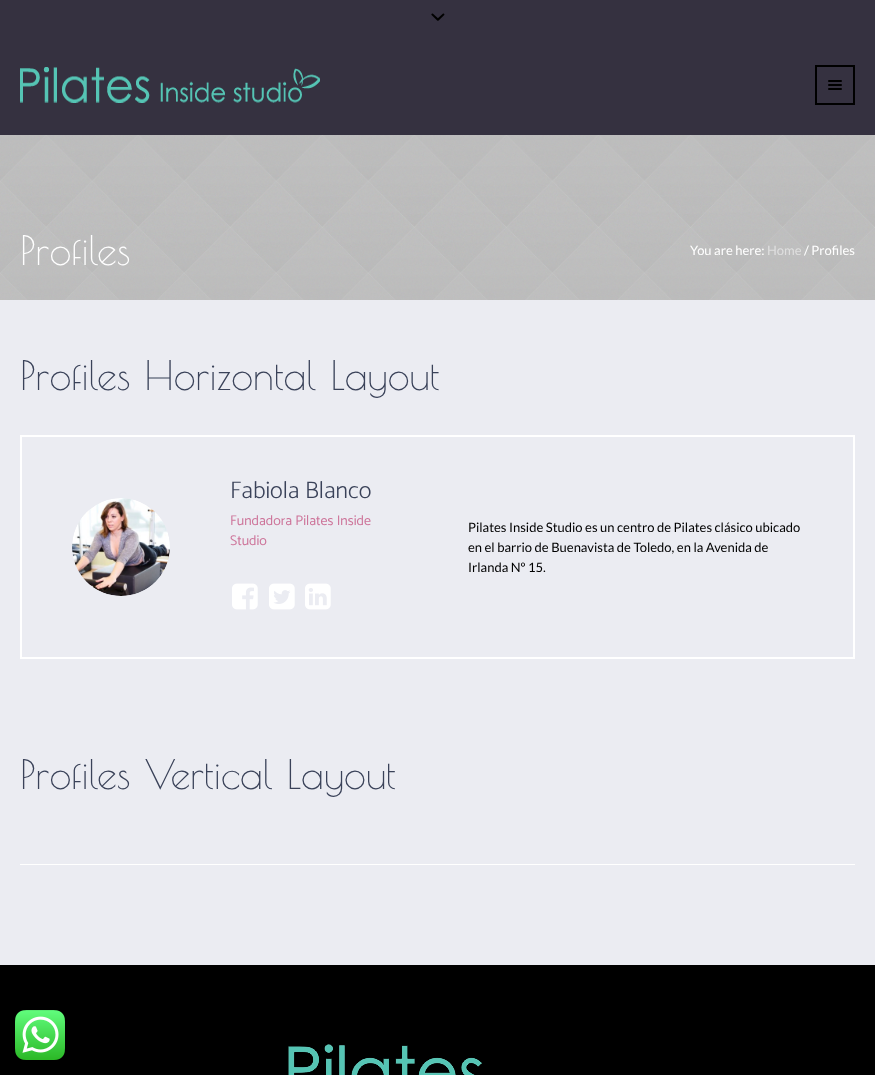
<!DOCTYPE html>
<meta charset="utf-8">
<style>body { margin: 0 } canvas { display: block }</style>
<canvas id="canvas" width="875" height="1075"></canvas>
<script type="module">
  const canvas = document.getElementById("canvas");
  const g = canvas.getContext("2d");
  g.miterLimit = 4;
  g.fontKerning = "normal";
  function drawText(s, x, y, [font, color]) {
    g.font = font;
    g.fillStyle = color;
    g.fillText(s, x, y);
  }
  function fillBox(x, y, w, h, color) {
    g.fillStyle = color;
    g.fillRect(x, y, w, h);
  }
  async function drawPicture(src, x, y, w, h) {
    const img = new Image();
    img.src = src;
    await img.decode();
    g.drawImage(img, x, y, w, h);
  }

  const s1 = ["40px Poiret One", "#FFFFFF"];
  const s2 = ["13px Lato", "#FFFFFF"];
  const s3 = ["13px Lato", "#DFDFDF"];
  const s4 = ["40px Poiret One", "#3A4259"];
  const s5 = ["300 24px Catamaran", "#3A4259"];
  const s6 = ["14px Catamaran", "#CD7399"];
  const s7 = ["13px Lato", "#000000"];

  fillBox(0, 0, 875, 1075, "#000000");
  fillBox(0, 0, 875, 135, "#353140");
  await drawPicture("pic1.png", 431, 13, 14, 8);
  await drawPicture("pic2.png", 20, 67, 300, 36);
  g.strokeStyle = "#000000";
  g.lineWidth = 2;
  g.strokeRect(816, 66, 38, 38);
  await drawPicture("pic3.png", 828, 80, 14, 10);
  await drawPicture("pic4.png", 0, 135, 875, 165);
  drawText("Profiles", 20, 265, s1);
  drawText("You are here:", 690, 255, s2);
  drawText("Home", 767, 255, s3);
  drawText("/ Profiles", 804, 255, s2);
  fillBox(0, 300, 875, 665, "#EBECF2");
  drawText("Profiles Horizontal Layout", 20, 390, s4);
  g.strokeStyle = "#FFFFFF";
  g.strokeRect(21, 436, 833, 222);
  await drawPicture("pic5.png", 72, 498, 98, 98);
  drawText("Fabiola Blanco", 230, 498, s5);
  drawText("Fundadora Pilates Inside", 230, 525, s6);
  drawText("Studio", 230, 545, s6);
  await drawPicture("pic6.png", 232, 583, 26, 27);
  await drawPicture("pic7.png", 269, 583, 26, 27);
  await drawPicture("pic8.png", 305, 583, 26, 27);
  drawText("Pilates Inside Studio es un centro de Pilates clásico ubicado", 468, 532, s7);
  drawText("en el barrio de Buenavista de Toledo, en la Avenida de", 468, 552, s7);
  drawText("Irlanda Nº 15.", 468, 572, s7);
  drawText("Profiles Vertical Layout", 20, 789, s4);
  fillBox(20, 864, 835, 1, "#FFFFFF");
  await drawPicture("pic9.png", 288, 1044, 194, 31);
  await drawPicture("pic10.png", 15, 1010, 50, 50);
</script>
